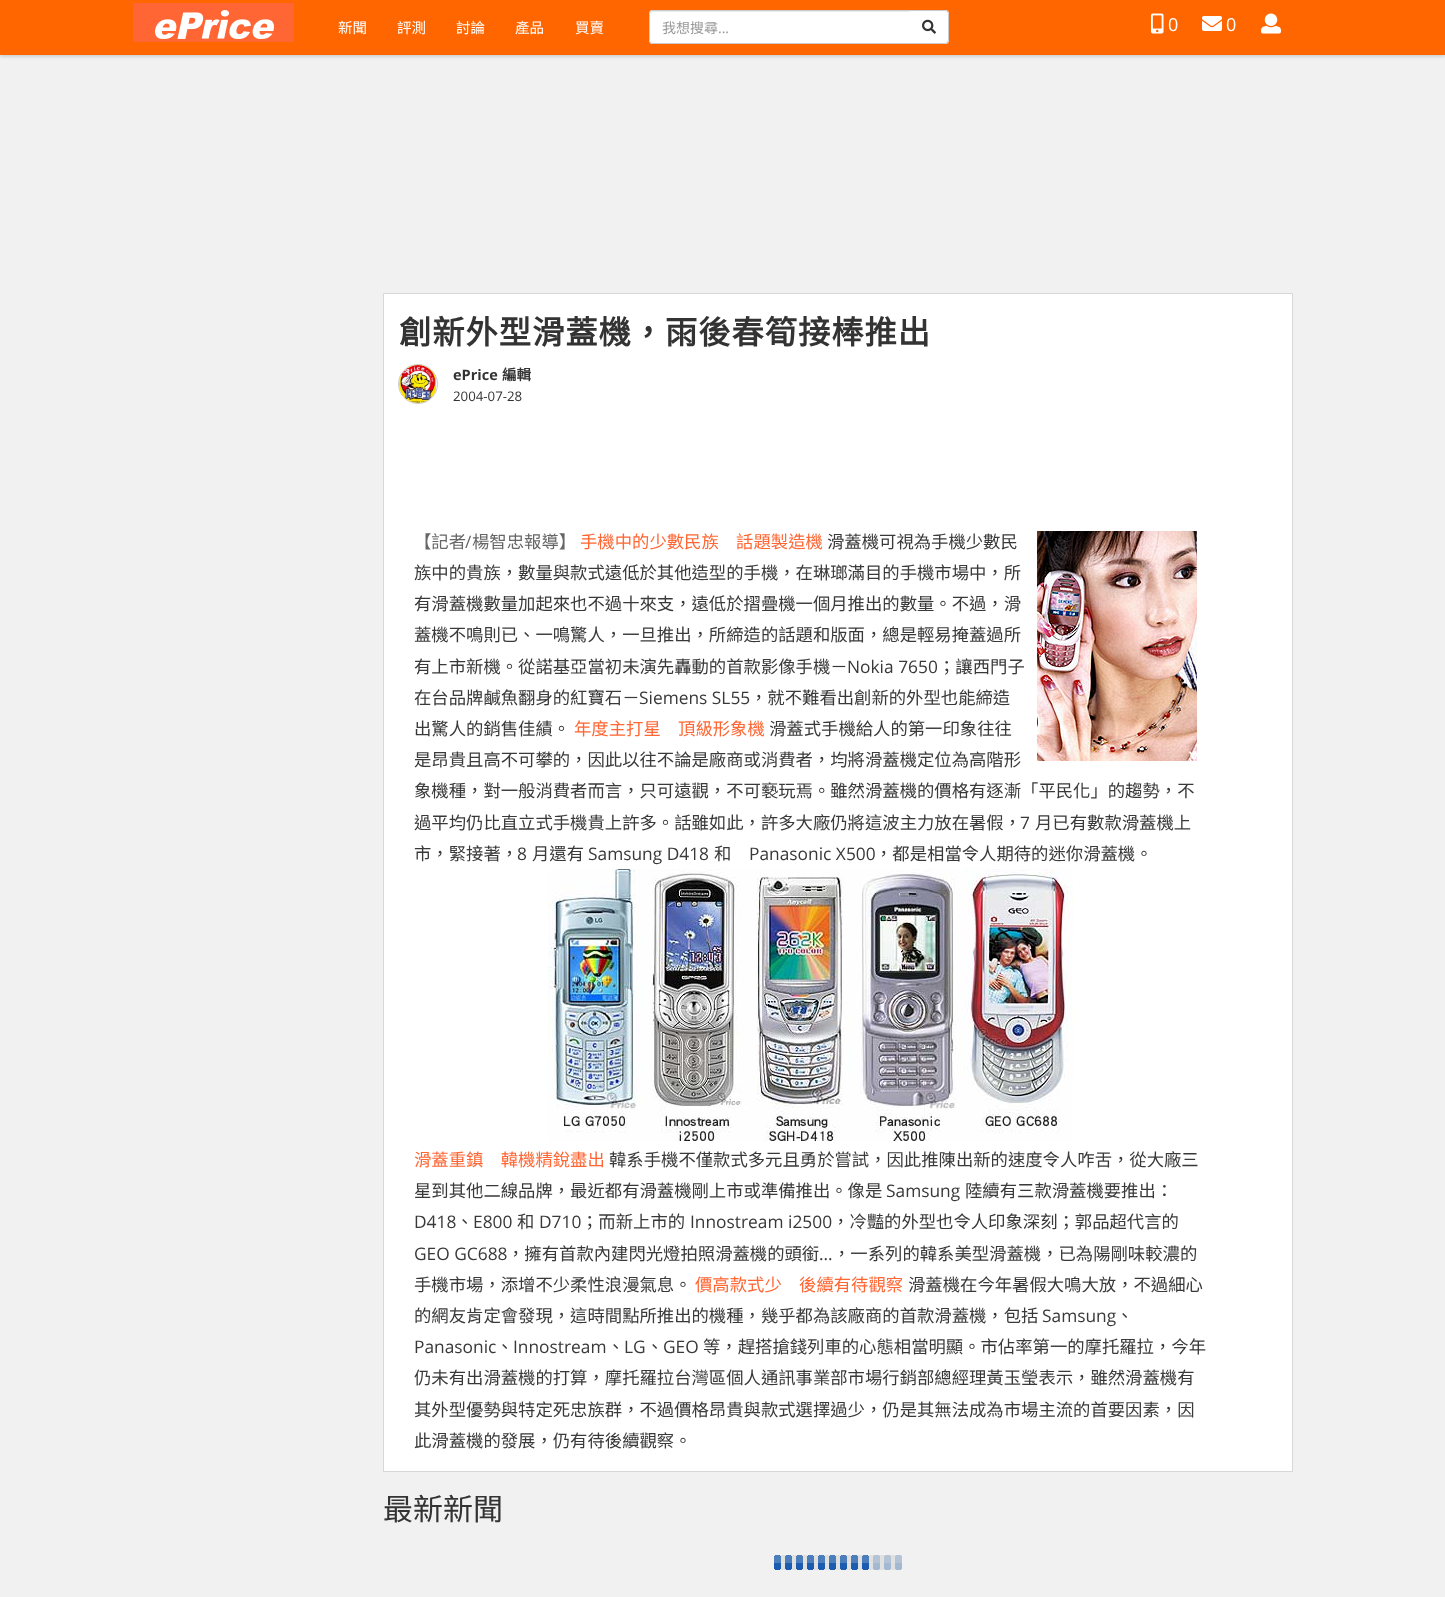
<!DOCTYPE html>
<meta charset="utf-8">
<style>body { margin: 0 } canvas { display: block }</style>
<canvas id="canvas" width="1445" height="1597"></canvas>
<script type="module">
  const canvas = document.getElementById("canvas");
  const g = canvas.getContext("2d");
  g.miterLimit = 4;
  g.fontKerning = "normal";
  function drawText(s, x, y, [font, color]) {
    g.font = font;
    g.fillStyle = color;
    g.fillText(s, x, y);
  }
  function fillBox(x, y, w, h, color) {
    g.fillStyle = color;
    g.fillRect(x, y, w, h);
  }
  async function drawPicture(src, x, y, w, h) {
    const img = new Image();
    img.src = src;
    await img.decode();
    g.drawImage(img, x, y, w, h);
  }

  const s1 = ["14.5px Noto Sans CJK TC", "#FFFFFF"];
  const s2 = ["14px Noto Sans CJK TC", "#999999"];
  const s3 = ["14px Open Sans", "#999999"];
  const s4 = ["18px Open Sans", "#FFFFFF"];
  const s5 = ["bold 32.25px Noto Sans CJK TC", "#333333"];
  const s6 = ["bold 14.5px Open Sans", "#333333"];
  const s7 = ["bold 14.5px Noto Sans CJK TC", "#333333"];
  const s8 = ["13.25px Open Sans", "#333333"];
  const s9 = ["17.35px Noto Sans CJK TC", "#666666"];
  const s10 = ["17.35px Open Sans", "#666666"];
  const s11 = ["17.35px Noto Sans CJK TC", "#FF6633"];
  const s12 = ["17.35px Noto Sans CJK TC", "#393939"];
  const s13 = ["17.35px Open Sans", "#393939"];
  const s14 = ["30px Noto Sans CJK TC", "#333333"];

  fillBox(0, 0, 1445, 1597, "#F1F1F1");
  g.fillStyle = "rgba(0, 0, 0, 0.13)";
  g.filter = "blur(1.5px)";
  g.beginPath();
  g.rect(0, 2, 1445, 55);
  g.fill();
  g.filter = "none";
  fillBox(0, 0, 1445, 55, "#FF6600");
  await drawPicture("pic1.png", 133, 3, 161, 39);
  drawText("新聞", 338, 33, s1);
  drawText("評測", 397, 33, s1);
  drawText("討論", 456, 33, s1);
  drawText("產品", 515, 33, s1);
  drawText("買賣", 575, 33, s1);
  g.beginPath();
  g.roundRect(649, 10, 262, 34, [4, 0, 0, 4]);
  g.fill();
  g.fillStyle = "#ECECEC";
  g.beginPath();
  g.moveTo(653, 12);
  g.lineTo(911, 12);
  g.lineTo(911, 11);
  g.lineTo(653, 11);
  g.bezierCurveTo(651, 11, 650, 12, 650, 14);
  g.lineTo(650, 15);
  g.bezierCurveTo(650, 13, 651, 12, 653, 12);
  g.closePath();
  g.fill();
  g.fillStyle = "#CCCCCC";
  g.beginPath();
  g.moveTo(653, 10);
  g.lineTo(911, 10);
  g.lineTo(911, 44);
  g.lineTo(653, 44);
  g.bezierCurveTo(651, 44, 649, 42, 649, 40);
  g.lineTo(649, 14);
  g.bezierCurveTo(649, 12, 651, 10, 653, 10);
  g.closePath();
  g.moveTo(653, 11);
  g.lineTo(911, 11);
  g.lineTo(911, 43);
  g.lineTo(653, 43);
  g.bezierCurveTo(651, 43, 650, 42, 650, 40);
  g.lineTo(650, 14);
  g.bezierCurveTo(650, 12, 651, 11, 653, 11);
  g.closePath();
  g.fill("evenodd");
  drawText("我想搜尋", 662, 33, s2);
  drawText("...", 718, 33, s3);
  g.fillStyle = "#FFFFFF";
  g.beginPath();
  g.roundRect(910, 10, 39, 34, [0, 4, 4, 0]);
  g.fill();
  g.fillStyle = "#CCCCCC";
  g.beginPath();
  g.moveTo(910, 10);
  g.lineTo(945, 10);
  g.bezierCurveTo(947, 10, 949, 12, 949, 14);
  g.lineTo(949, 40);
  g.bezierCurveTo(949, 42, 947, 44, 945, 44);
  g.lineTo(910, 44);
  g.closePath();
  g.moveTo(910, 11);
  g.lineTo(945, 11);
  g.bezierCurveTo(946.5, 11, 948, 12.5, 948, 14);
  g.lineTo(948, 40);
  g.bezierCurveTo(948, 41.5, 946.5, 43, 945, 43);
  g.lineTo(910, 43);
  g.closePath();
  g.fill("evenodd");
  await drawPicture("pic2.png", 922, 19, 14, 15);
  await drawPicture("pic3.png", 1151, 13, 13, 21);
  drawText("0", 1168, 31, s4);
  await drawPicture("pic4.png", 1202, 16, 20, 15);
  drawText("0", 1226, 31, s4);
  await drawPicture("pic5.png", 1261, 13, 20, 21);
  g.beginPath();
  g.rect(383.5, 293.5, 909, 1178);
  g.fill();
  g.strokeStyle = "#D7D7D7";
  g.stroke();
  g.letterSpacing = "1px";
  drawText("創新外型滑蓋機，雨後春筍接棒推出", 399, 344, s5);
  g.beginPath();
  g.arc(418, 384, 19.5, 0, Math.PI * 2);
  g.strokeStyle = "#CCCCCC";
  g.stroke();
  await drawPicture("pic6.png", 399, 365, 37, 38);
  g.letterSpacing = "0px";
  drawText("ePrice", 453, 380, s6);
  drawText("編輯", 502, 380, s7);
  drawText("2004-07-28", 453, 401, s8);
  drawText("【記者", 414, 548, s9);
  drawText("∕", 465, 548, s10);
  drawText("楊智忠報導】", 472, 548, s9);
  drawText("手機中的少數民族　話題製造機", 580, 548, s11);
  drawText("滑蓋機可視為手機少數民", 827, 548, s12);
  await drawPicture("pic7.png", 1037, 531, 160, 230);
  drawText("族中的貴族，數量與款式遠低於其他造型的手機，在琳瑯滿目的手機市場中，所", 414, 579, s12);
  drawText("有滑蓋機數量加起來也不過十來支，遠低於摺疊機一個月推出的數量。不過，滑", 414, 610, s12);
  drawText("蓋機不鳴則已、一鳴驚人，一旦推出，所締造的話題和版面，總是輕易掩蓋過所", 414, 641, s12);
  drawText("有上市新機。從諾基亞當初未演先轟動的首款影像手機－", 414, 673, s12);
  drawText("Nokia 7650", 847, 673, s13);
  drawText("；讓西門子", 938, 673, s12);
  drawText("在台品牌鹹魚翻身的紅寶石－", 414, 704, s12);
  drawText("Siemens SL55", 639, 704, s13);
  drawText("，就不難看出創新的外型也能締造", 750, 704, s12);
  drawText("出驚人的銷售佳績。", 414, 735, s12);
  drawText("年度主打星　頂級形象機", 574, 735, s11);
  drawText("滑蓋式手機給人的第一印象往往", 769, 735, s12);
  drawText("是昂貴且高不可攀的，因此以往不論是廠商或消費者，均將滑蓋機定位為高階形", 414, 766, s12);
  drawText("象機種，對一般消費者而言，只可遠觀，不可褻玩焉。雖然滑蓋機的價格有逐漸「平民化」的趨勢，不", 414, 797, s12);
  drawText("過平均仍比直立式手機貴上許多。話雖如此，許多大廠仍將這波主力放在暑假，", 414, 829, s12);
  drawText("7", 1020, 829, s13);
  drawText("月已有數款滑蓋機上", 1035, 829, s12);
  drawText("市，緊接著，", 414, 860, s12);
  drawText("8", 517, 860, s13);
  drawText("月還有", 532, 860, s12);
  drawText("Samsung D418", 588, 860, s13);
  drawText("和", 714, 860, s12);
  drawText("Panasonic X500", 749, 860, s13);
  drawText("，都是相當令人期待的迷你滑蓋機。", 875, 860, s12);
  await drawPicture("pic8.png", 548, 869, 525, 272);
  drawText("滑蓋重鎮　韓機精銳盡出", 414, 1166, s11);
  drawText("韓系手機不僅款式多元且勇於嘗試，因此推陳出新的速度令人咋舌，從大廠三", 609, 1166, s12);
  drawText("星到其他二線品牌，最近都有滑蓋機剛上市或準備推出。像是", 414, 1197, s12);
  drawText("Samsung", 886, 1197, s13);
  drawText("陸續有三款滑蓋機要推出：", 965, 1197, s12);
  drawText("D418", 414, 1228, s13);
  drawText("、", 456, 1228, s12);
  drawText("E800", 473, 1228, s13);
  drawText("和", 517, 1228, s12);
  drawText("D710", 539, 1228, s13);
  drawText("；而新上市的", 581, 1228, s12);
  drawText("Innostream i2500", 690, 1228, s13);
  drawText("，冷豔的外型也令人印象深刻；郭品超代言的", 832, 1228, s12);
  drawText("GEO GC688", 414, 1260, s13);
  drawText("，擁有首款內建閃光燈拍照滑蓋機的頭銜", 507, 1260, s12);
  drawText("...", 819, 1260, s13);
  drawText("，一系列的韓系美型滑蓋機，已為陽剛味較濃的", 833, 1260, s12);
  drawText("手機市場，添增不少柔性浪漫氣息。", 414, 1291, s12);
  drawText("價高款式少　後續有待觀察", 695, 1291, s11);
  drawText("滑蓋機在今年暑假大鳴大放，不過細心", 908, 1291, s12);
  drawText("的網友肯定會發現，這時間點所推出的機種，幾乎都為該廠商的首款滑蓋機，包括", 414, 1322, s12);
  drawText("Samsung", 1042, 1322, s13);
  drawText("、", 1116, 1322, s12);
  drawText("Panasonic", 414, 1353, s13);
  drawText("、", 496, 1353, s12);
  drawText("Innostream", 513, 1353, s13);
  drawText("、", 607, 1353, s12);
  drawText("LG", 624, 1353, s13);
  drawText("、", 646, 1353, s12);
  drawText("GEO", 663, 1353, s13);
  drawText("等，趕搭搶錢列車的心態相當明顯。市佔率第一的摩托羅拉，今年", 703, 1353, s12);
  drawText("仍未有出滑蓋機的打算，摩托羅拉台灣區個人通訊事業部市場行銷部總經理黃玉瑩表示，雖然滑蓋機有", 414, 1384, s12);
  drawText("其外型優勢與特定死忠族群，不過價格昂貴與款式選擇過少，仍是其無法成為市場主流的首要因素，因", 414, 1416, s12);
  drawText("此滑蓋機的發展，仍有待後續觀察。", 414, 1447, s12);
  drawText("最新新聞", 383, 1520, s14);
  await drawPicture("pic9.png", 774, 1555, 128, 15);
</script>
